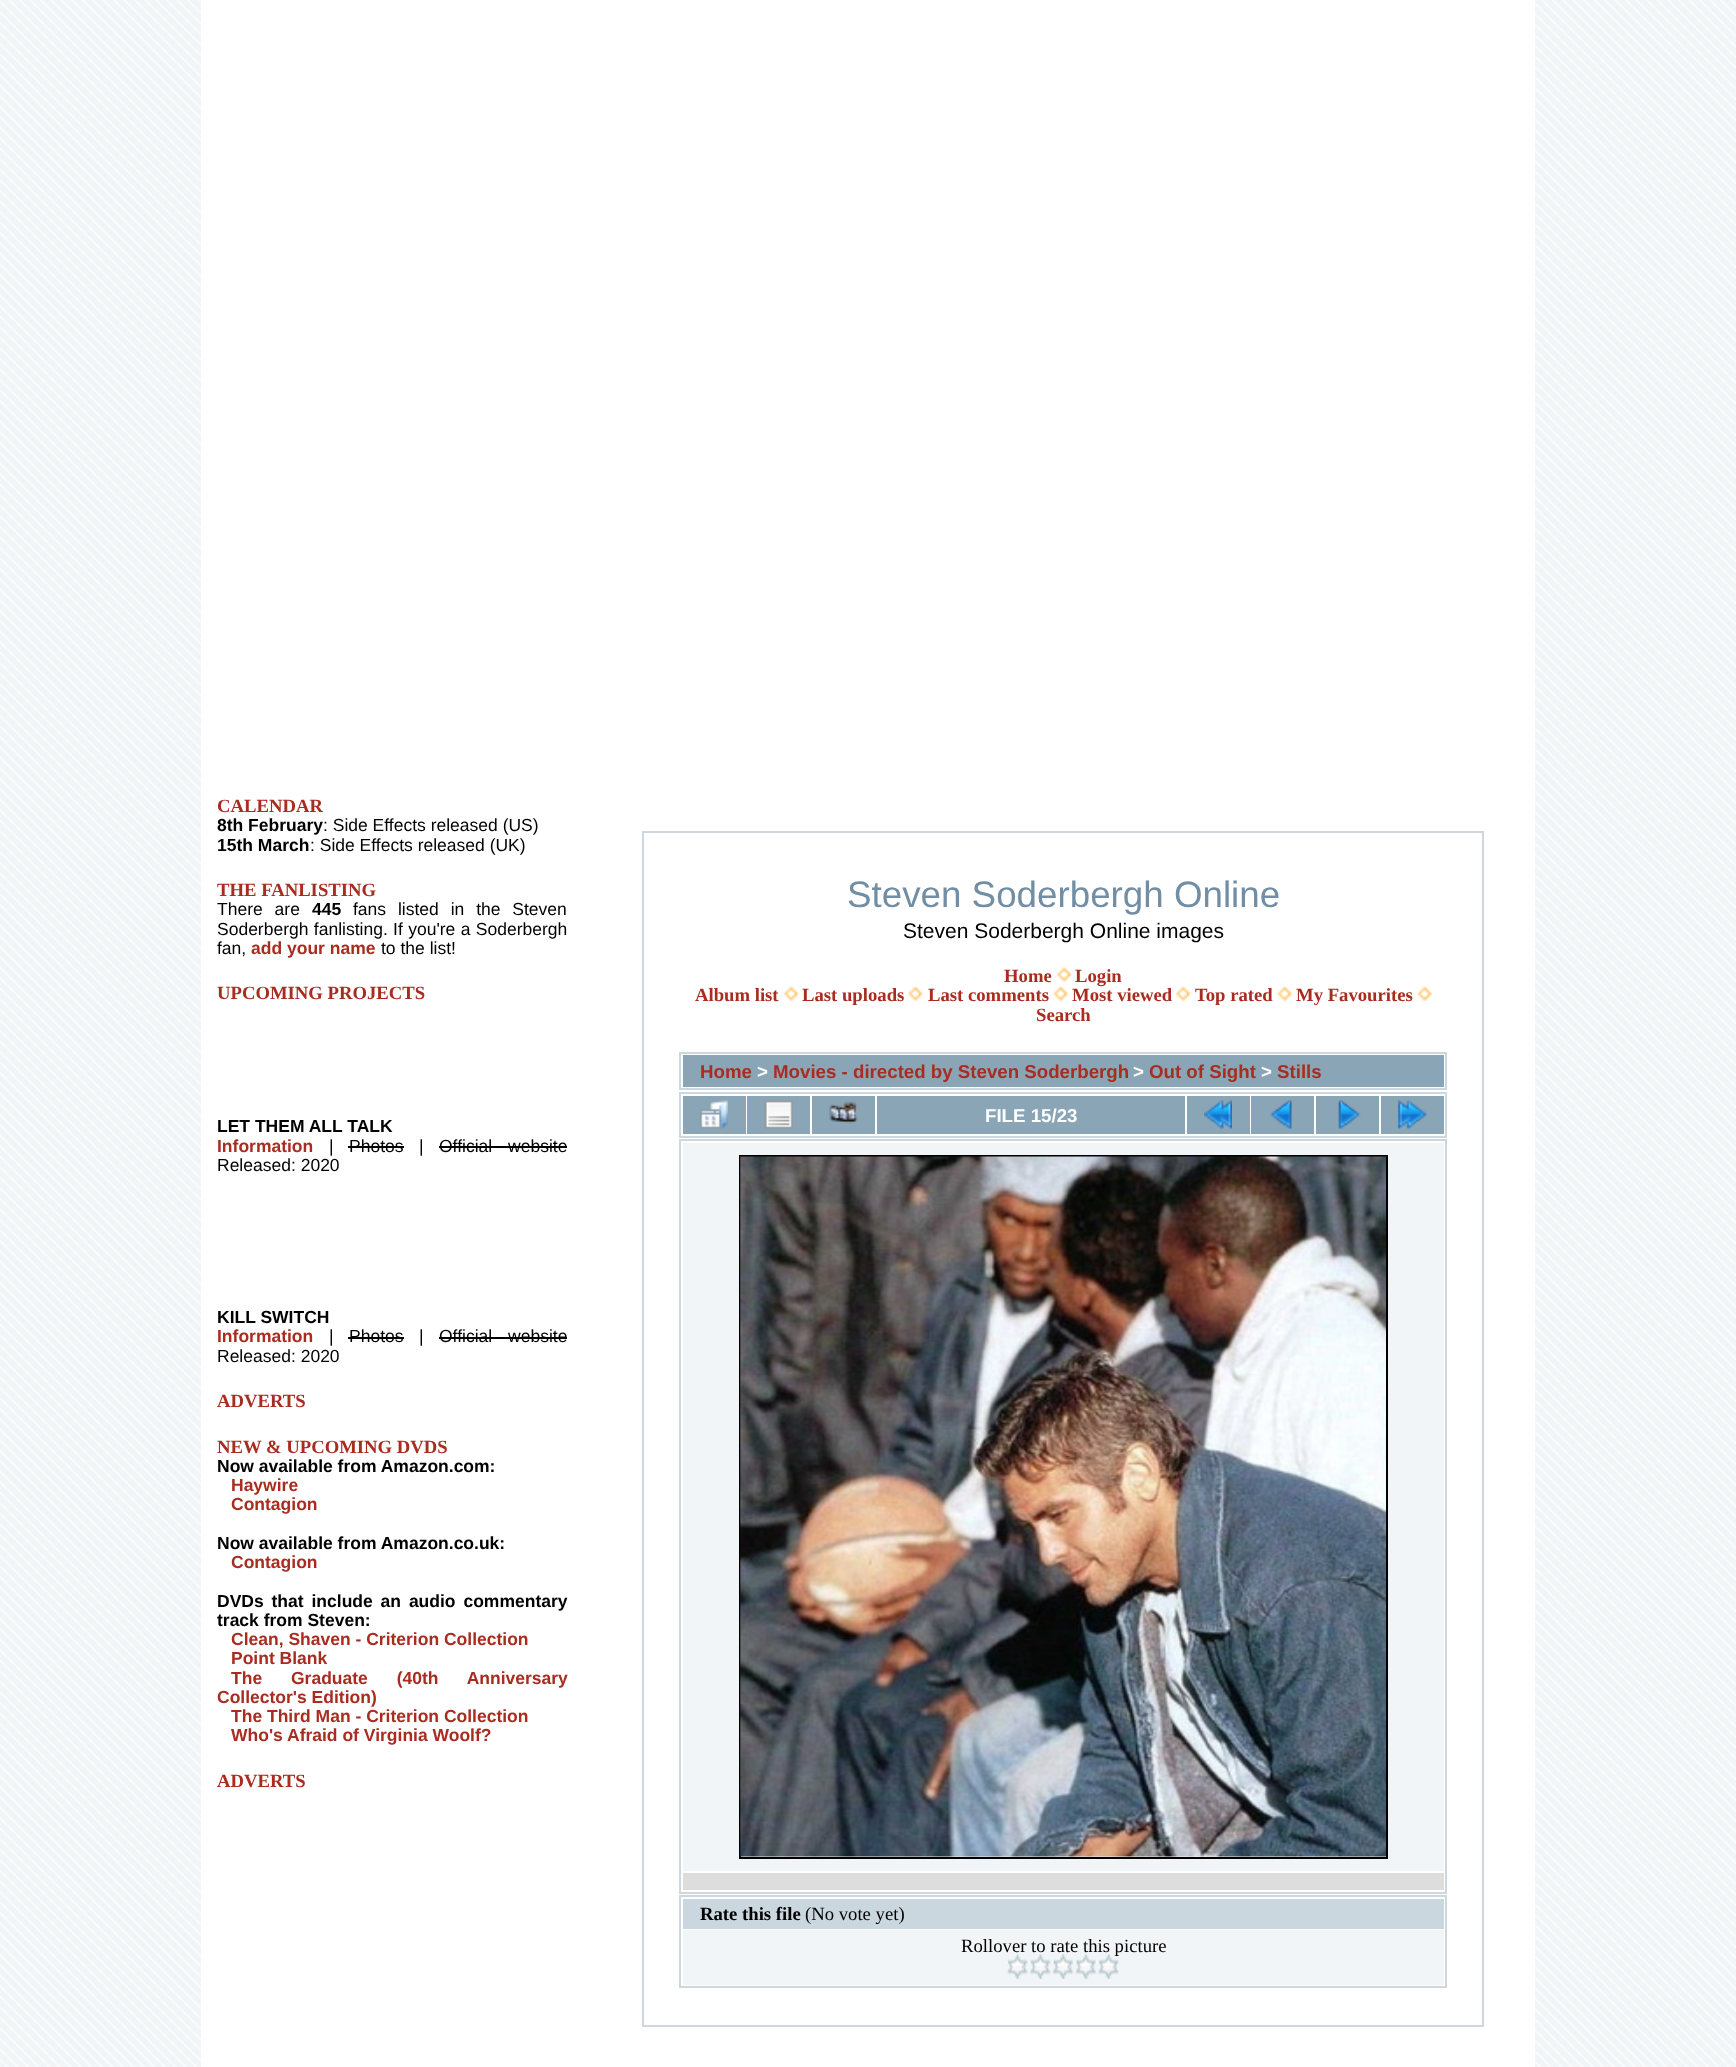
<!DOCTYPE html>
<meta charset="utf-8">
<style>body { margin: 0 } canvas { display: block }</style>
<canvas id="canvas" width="1736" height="2067"></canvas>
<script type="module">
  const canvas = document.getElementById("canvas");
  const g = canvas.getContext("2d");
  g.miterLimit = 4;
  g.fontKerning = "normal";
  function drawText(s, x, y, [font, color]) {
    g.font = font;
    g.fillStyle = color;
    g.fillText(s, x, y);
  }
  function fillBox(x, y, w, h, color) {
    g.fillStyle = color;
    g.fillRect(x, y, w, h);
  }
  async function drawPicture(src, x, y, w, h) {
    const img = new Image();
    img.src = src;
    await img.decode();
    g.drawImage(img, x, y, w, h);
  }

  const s1 = ["bold 18.7px Liberation Serif", "#A82C20"];
  const s2 = ["bold 17.5px Liberation Sans", "#000000"];
  const s3 = ["17.5px Liberation Sans", "#000000"];
  const s4 = ["bold 17.5px Liberation Sans", "#A82C20"];
  const s5 = ["36.75px Liberation Sans", "#718EA5"];
  const s6 = ["21px Liberation Sans", "#000000"];
  const s7 = ["bold 18.7px Liberation Sans", "#A82C20"];
  const s8 = ["bold 18.7px Liberation Sans", "#FFFFFF"];
  const s9 = ["bold 18.7px Liberation Serif", "#000000"];
  const s10 = ["18.7px Liberation Serif", "#000000"];

  fillBox(0, 0, 1736, 2067, "#F2F5F7");
  await drawPicture("pic1.png", 0, 0, 1736, 2067);
  fillBox(201, 0, 1334, 793, "#FFFFFF");
  fillBox(201, 793, 1334, 1274, "#FFFFFF");
  drawText("CALENDAR", 217, 812, s1);
  drawText("8th February", 217, 831, s2);
  drawText(": Side Effects released (US)", 323, 831, s3);
  drawText("15th March", 217, 851, s2);
  drawText(": Side Effects released (UK)", 310, 851, s3);
  drawText("THE FANLISTING", 217, 896, s1);
  g.wordSpacing = "7px";
  drawText("There are", 217, 915, s3);
  g.wordSpacing = "0px";
  drawText("445", 312, 915, s2);
  g.wordSpacing = "7px";
  drawText("fans listed in the Steven", 353, 915, s3);
  g.wordSpacing = "0.5px";
  drawText("Soderbergh fanlisting. If you're a Soderbergh", 217, 935, s3);
  g.wordSpacing = "0px";
  drawText("fan,", 217, 954, s3);
  drawText("add your name", 251, 954, s4);
  drawText("to the list!", 381, 954, s3);
  drawText("UPCOMING PROJECTS", 217, 999, s1);
  drawText("LET THEM ALL TALK", 217, 1132, s2);
  drawText("Information", 217, 1152, s4);
  drawText("|", 329, 1152, s3);
  drawText("Photos", 349, 1152, s3);
  fillBox(348, 1146, 56, 2, "#000000");
  drawText("|", 419, 1152, s3);
  g.wordSpacing = "11px";
  drawText("Official website", 439, 1152, s3);
  fillBox(439, 1146, 128, 2, "#000000");
  g.wordSpacing = "0px";
  drawText("Released: 2020", 217, 1171, s3);
  drawText("KILL SWITCH", 217, 1323, s2);
  drawText("Information", 217, 1342, s4);
  drawText("|", 329, 1342, s3);
  drawText("Photos", 349, 1342, s3);
  fillBox(348, 1337, 56, 2, "#000000");
  drawText("|", 419, 1342, s3);
  g.wordSpacing = "11px";
  drawText("Official website", 439, 1342, s3);
  fillBox(439, 1337, 128, 2, "#000000");
  g.wordSpacing = "0px";
  drawText("Released: 2020", 217, 1362, s3);
  drawText("ADVERTS", 217, 1407, s1);
  drawText("NEW & UPCOMING DVDS", 217, 1453, s1);
  drawText("Now available from Amazon.com:", 217, 1472, s2);
  drawText("Haywire", 231, 1491, s4);
  drawText("Contagion", 231, 1510, s4);
  drawText("Now available from Amazon.co.uk:", 217, 1549, s2);
  drawText("Contagion", 231, 1568, s4);
  g.wordSpacing = "3px";
  drawText("DVDs that include an audio commentary", 217, 1607, s2);
  g.wordSpacing = "0px";
  drawText("track from Steven:", 217, 1626, s2);
  drawText("Clean, Shaven - Criterion Collection", 231, 1645, s4);
  drawText("Point Blank", 231, 1664, s4);
  g.wordSpacing = "24px";
  drawText("The Graduate (40th Anniversary", 231, 1684, s4);
  g.wordSpacing = "0px";
  drawText("Collector's Edition)", 217, 1703, s4);
  drawText("The Third Man - Criterion Collection", 231, 1722, s4);
  drawText("Who's Afraid of Virginia Woolf?", 231, 1741, s4);
  drawText("ADVERTS", 217, 1787, s1);
  g.strokeStyle = "#CCD7E0";
  g.lineWidth = 2;
  g.strokeRect(643, 832, 840, 1194);
  drawText("Steven Soderbergh Online", 847, 907, s5);
  drawText("Steven Soderbergh Online images", 903, 938, s6);
  drawText("Home", 1004, 982, s1);
  await drawPicture("pic2.png", 1057, 967, 14, 15);
  drawText("Login", 1075, 982, s1);
  drawText("Album list", 695, 1001, s1);
  await drawPicture("pic3.png", 784, 986, 14, 15);
  drawText("Last uploads", 802, 1001, s1);
  await drawPicture("pic4.png", 908, 986, 15, 15);
  drawText("Last comments", 928, 1001, s1);
  await drawPicture("pic5.png", 1053, 986, 15, 15);
  drawText("Most viewed", 1072, 1001, s1);
  await drawPicture("pic6.png", 1176, 986, 14, 15);
  drawText("Top rated", 1195, 1001, s1);
  await drawPicture("pic7.png", 1277, 986, 15, 15);
  drawText("My Favourites", 1296, 1001, s1);
  await drawPicture("pic7.png", 1417, 986, 15, 15);
  drawText("Search", 1036, 1021, s1);
  g.strokeRect(680, 1053, 766, 36);
  fillBox(683, 1055, 761, 32, "#8AA5B5");
  drawText("Home", 700, 1078, s7);
  drawText(">", 757, 1078, s8);
  drawText("Movies - directed by Steven Soderbergh", 773, 1078, s7);
  drawText(">", 1133, 1078, s8);
  drawText("Out of Sight", 1149, 1078, s7);
  drawText(">", 1261, 1078, s8);
  drawText("Stills", 1277, 1078, s7);
  g.strokeRect(680, 1093, 766, 44);
  fillBox(683, 1096, 63, 38, "#8AA5B5");
  await drawPicture("pic8.png", 700, 1100, 28, 29);
  fillBox(747, 1096, 63, 38, "#8AA5B5");
  await drawPicture("pic9.png", 764, 1100, 29, 29);
  fillBox(812, 1096, 63, 38, "#8AA5B5");
  await drawPicture("pic10.png", 829, 1101, 29, 23);
  fillBox(877, 1096, 308, 38, "#8AA5B5");
  drawText("FILE 15/23", 985, 1122, s8);
  fillBox(1187, 1096, 63, 38, "#8AA5B5");
  await drawPicture("pic11.png", 1204, 1100, 28, 29);
  fillBox(1251, 1096, 63, 38, "#8AA5B5");
  await drawPicture("pic12.png", 1270, 1100, 22, 29);
  fillBox(1316, 1096, 63, 38, "#8AA5B5");
  await drawPicture("pic13.png", 1338, 1100, 23, 29);
  fillBox(1381, 1096, 63, 38, "#8AA5B5");
  await drawPicture("pic14.png", 1398, 1100, 29, 29);
  g.strokeRect(680, 1140, 766, 753);
  fillBox(683, 1143, 761, 728, "#F2F5F7");
  g.strokeStyle = "#000000";
  g.strokeRect(740, 1156, 647, 702);
  await drawPicture("pic15.png", 740, 1156, 646, 701);
  fillBox(683, 1873, 761, 17, "#DDDDDD");
  g.strokeStyle = "#CCD7E0";
  g.strokeRect(680, 1896, 766, 91);
  fillBox(683, 1899, 761, 30, "#CBD7DE");
  drawText("Rate this file", 700, 1920, s9);
  drawText("(No vote yet)", 805, 1920, s10);
  fillBox(683, 1930, 761, 55, "#F2F5F7");
  drawText("Rollover to rate this picture", 961, 1952, s10);
  await drawPicture("pic16.png", 1006, 1954, 23, 25);
  await drawPicture("pic17.png", 1029, 1954, 22, 25);
  await drawPicture("pic18.png", 1052, 1954, 22, 25);
  await drawPicture("pic19.png", 1074, 1954, 23, 25);
  await drawPicture("pic20.png", 1097, 1954, 23, 25);
</script>
